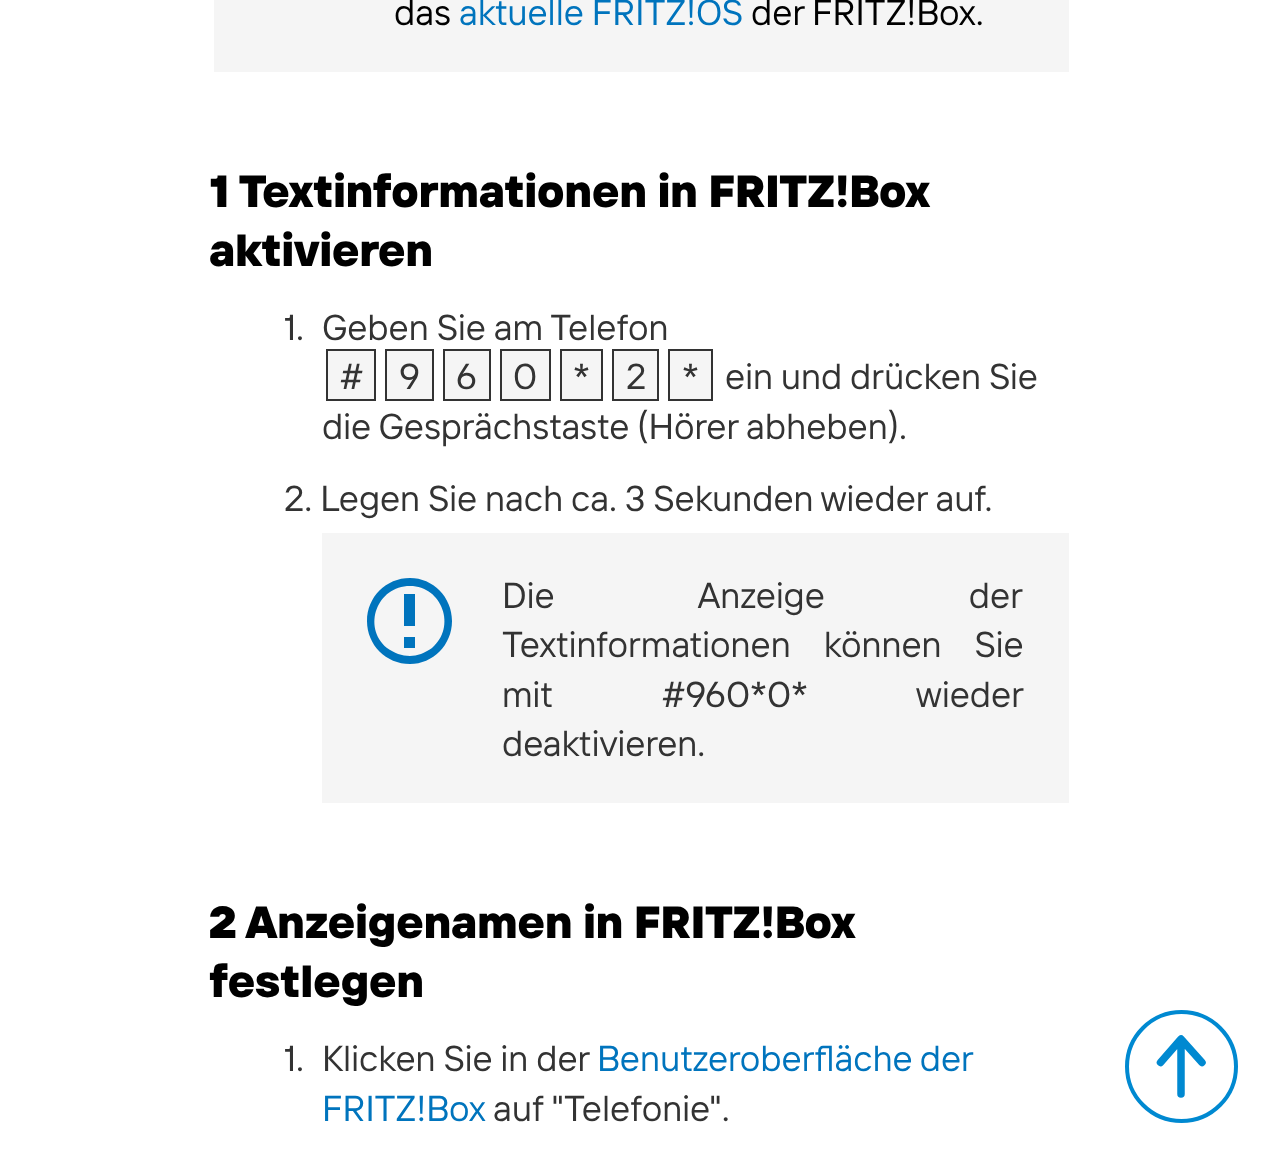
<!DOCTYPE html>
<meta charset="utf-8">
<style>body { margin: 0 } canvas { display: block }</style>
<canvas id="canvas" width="1282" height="1167"></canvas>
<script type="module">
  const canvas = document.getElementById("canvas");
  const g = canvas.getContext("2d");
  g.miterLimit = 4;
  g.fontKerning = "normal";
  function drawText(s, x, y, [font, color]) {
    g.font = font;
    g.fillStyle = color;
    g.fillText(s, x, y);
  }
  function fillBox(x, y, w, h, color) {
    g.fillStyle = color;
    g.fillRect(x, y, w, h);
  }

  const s1 = ["36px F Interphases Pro", "#000000"];
  const s2 = ["36px F Interphases Pro", "#0074BD"];
  const s3 = ["900 45px F Interphases Pro", "#000000"];
  const s4 = ["36px F Interphases Pro", "#333333"];

  fillBox(0, 0, 1282, 1167, "#FFFFFF");
  fillBox(214, 0, 855, 72, "#F5F5F5");
  drawText("das", 394, 25, s1);
  drawText("aktuelle FRITZ!OS", 459, 25, s2);
  drawText("der FRITZ!Box.", 751, 25, s1);
  drawText("1 Textinformationen in FRITZ!Box", 209, 207, s3);
  drawText("aktivieren", 209, 266, s3);
  drawText("1.", 284, 340, s4);
  drawText("Geben Sie am Telefon", 322, 340, s4);
  g.fillStyle = "#F5F5F5";
  g.beginPath();
  g.rect(327, 350, 48, 50);
  g.fill();
  g.strokeStyle = "#333333";
  g.lineWidth = 2;
  g.stroke();
  drawText("#", 340, 389, s4);
  g.fillStyle = "#F5F5F5";
  g.beginPath();
  g.rect(386, 350, 47, 50);
  g.fill();
  g.stroke();
  drawText("9", 399, 389, s4);
  g.fillStyle = "#F5F5F5";
  g.beginPath();
  g.rect(444, 350, 46, 50);
  g.fill();
  g.stroke();
  drawText("6", 456, 389, s4);
  g.fillStyle = "#F5F5F5";
  g.beginPath();
  g.rect(501, 350, 49, 50);
  g.fill();
  g.stroke();
  drawText("0", 513, 389, s4);
  g.fillStyle = "#F5F5F5";
  g.beginPath();
  g.rect(561, 350, 41, 50);
  g.fill();
  g.stroke();
  drawText("*", 573, 389, s4);
  g.fillStyle = "#F5F5F5";
  g.beginPath();
  g.rect(613, 350, 45, 50);
  g.fill();
  g.stroke();
  drawText("2", 626, 389, s4);
  g.fillStyle = "#F5F5F5";
  g.beginPath();
  g.rect(669, 350, 43, 50);
  g.fill();
  g.stroke();
  drawText("*", 682, 389, s4);
  drawText("ein und drücken Sie", 725, 389, s4);
  drawText("die Gesprächstaste (Hörer abheben).", 322, 439, s4);
  drawText("2. Legen Sie nach ca. 3 Sekunden wieder auf.", 284, 511, s4);
  fillBox(322, 533, 747, 270, "#F5F5F5");
  g.fillStyle = "#0074BD";
  g.beginPath();
  g.moveTo(410, 586);
  g.bezierCurveTo(377, 586, 362, 627, 387, 648);
  g.bezierCurveTo(394, 653, 402, 656, 410, 656);
  g.bezierCurveTo(417, 656, 425, 653, 432, 648);
  g.bezierCurveTo(457, 627, 442, 586, 410, 586);
  g.closePath();
  g.moveTo(410, 578);
  g.bezierCurveTo(433, 578, 452, 597, 452, 621);
  g.bezierCurveTo(452, 645, 433, 664, 410, 664);
  g.bezierCurveTo(386, 664, 367, 645, 367, 621);
  g.bezierCurveTo(367, 597, 386, 578, 410, 578);
  g.closePath();
  g.moveTo(404, 637);
  g.lineTo(415, 637);
  g.lineTo(415, 648);
  g.lineTo(404, 648);
  g.closePath();
  g.moveTo(404, 594);
  g.lineTo(415, 594);
  g.lineTo(415, 626);
  g.lineTo(404, 626);
  g.closePath();
  g.fill();
  g.wordSpacing = "136px";
  drawText("Die Anzeige der", 502, 608, s4);
  g.wordSpacing = "25px";
  drawText("Textinformationen können Sie", 502, 657, s4);
  g.wordSpacing = "0px";
  drawText("mit", 502, 707, s4);
  g.wordSpacing = "101px";
  drawText("#960*0* wieder", 662, 707, s4);
  g.wordSpacing = "0px";
  drawText("deaktivieren.", 502, 756, s4);
  drawText("2 Anzeigenamen in FRITZ!Box", 209, 938, s3);
  drawText("festlegen", 209, 997, s3);
  drawText("1.", 284, 1071, s4);
  drawText("Klicken Sie in der", 322, 1071, s4);
  g.wordSpacing = "-1px";
  drawText("Benutzeroberfläche der", 597, 1071, s2);
  g.wordSpacing = "0px";
  drawText("FRITZ!Box", 322, 1121, s2);
  drawText("auf \"Telefonie\".", 493, 1121, s4);
  g.beginPath();
  g.arc(1181.5, 1066.5, 54.5, 0, Math.PI * 2);
  g.strokeStyle = "#0089D1";
  g.lineWidth = 4;
  g.stroke();
  g.beginPath();
  g.moveTo(1202, 1062.5);
  g.lineTo(1181, 1039);
  g.lineTo(1160.5, 1062.5);
  g.moveTo(1181, 1039.5);
  g.lineTo(1181, 1094);
  g.lineWidth = 7.5;
  g.lineCap = "round";
  g.lineJoin = "round";
  g.stroke();
</script>
